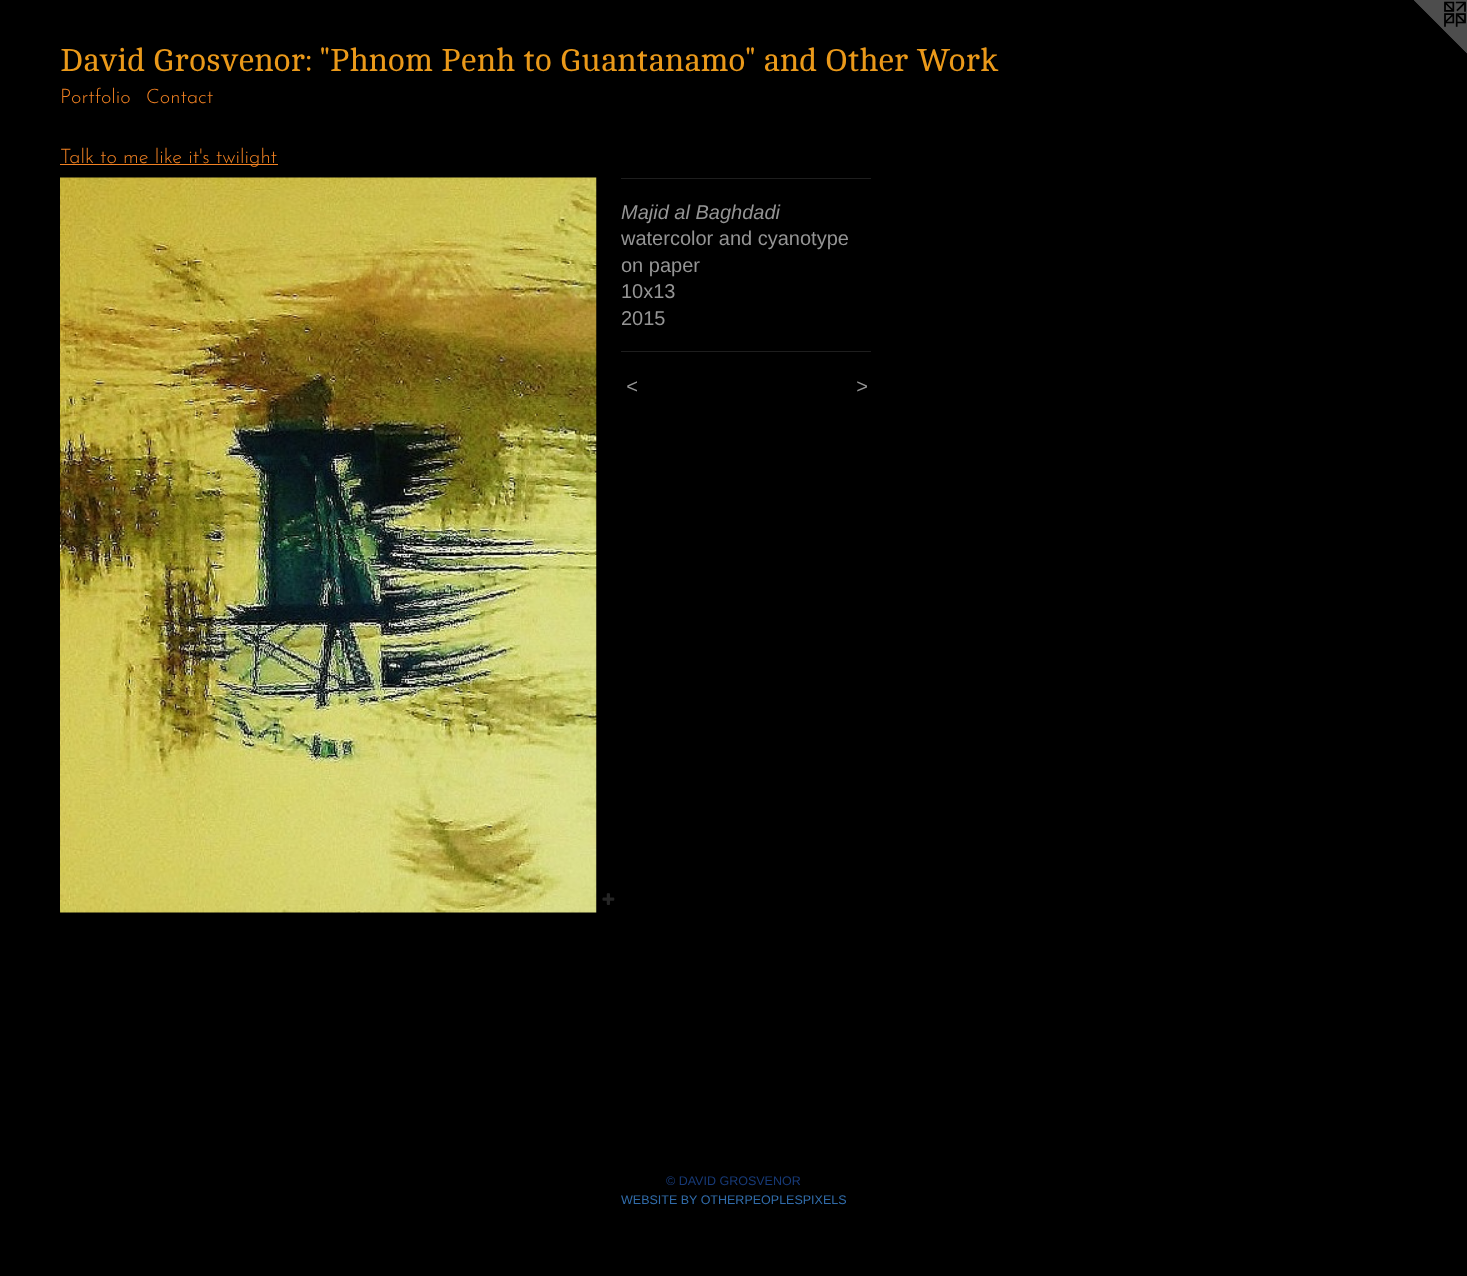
<!DOCTYPE html>
<meta charset="utf-8">
<style>body { margin: 0 } canvas { display: block }</style>
<canvas id="canvas" width="1467" height="1276"></canvas>
<script type="module">
  const canvas = document.getElementById("canvas");
  const g = canvas.getContext("2d");
  g.miterLimit = 4;
  g.fontKerning = "normal";
  function drawText(s, x, y, [font, color]) {
    g.font = font;
    g.fillStyle = color;
    g.fillText(s, x, y);
  }
  function fillBox(x, y, w, h, color) {
    g.fillStyle = color;
    g.fillRect(x, y, w, h);
  }
  async function drawPicture(src, x, y, w, h) {
    const img = new Image();
    img.src = src;
    await img.decode();
    g.drawImage(img, x, y, w, h);
  }

  const s1 = ["32.5px Cambo", "#EA991A"];
  const s2 = ["100 20px Josefin Sans", "#F18122"];
  const s3 = ["italic 20px Liberation Sans", "#949494"];
  const s4 = ["20px Liberation Sans", "#949494"];
  const s5 = ["12.5px Liberation Sans", "#173A78"];
  const s6 = ["12.5px Liberation Sans", "#316CAA"];

  fillBox(0, 0, 1467, 1276, "#000000");
  await drawPicture("pic1.png", 1414, 0, 53, 54);
  drawText("David Grosvenor: \"Phnom Penh to Guantanamo\" and Other Work", 60, 71, s1);
  drawText("Portfolio", 60, 103, s2);
  drawText("Contact", 146, 103, s2);
  fillBox(60, 164, 218, 1, "#F18122");
  drawText("Talk to me like it's twilight", 60, 163, s2);
  await drawPicture("pic2.png", 60, 177, 537, 736);
  await drawPicture("pic3.png", 602, 893, 13, 12);
  fillBox(621, 178, 250, 1, "#1E1E1E");
  drawText("Majid al Baghdadi", 621, 219, s3);
  drawText("watercolor and cyanotype", 621, 245, s4);
  drawText("on paper", 621, 272, s4);
  drawText("10x13", 621, 298, s4);
  drawText("2015", 621, 325, s4);
  fillBox(621, 351, 250, 1, "#1E1E1E");
  g.letterSpacing = "1px";
  drawText("<", 626, 393, s3);
  drawText(">", 856, 393, s3);
  g.letterSpacing = "0px";
  drawText("© DAVID GROSVENOR", 666, 1185, s5);
  drawText("WEBSITE BY OTHERPEOPLESPIXELS", 621, 1204, s6);
</script>
